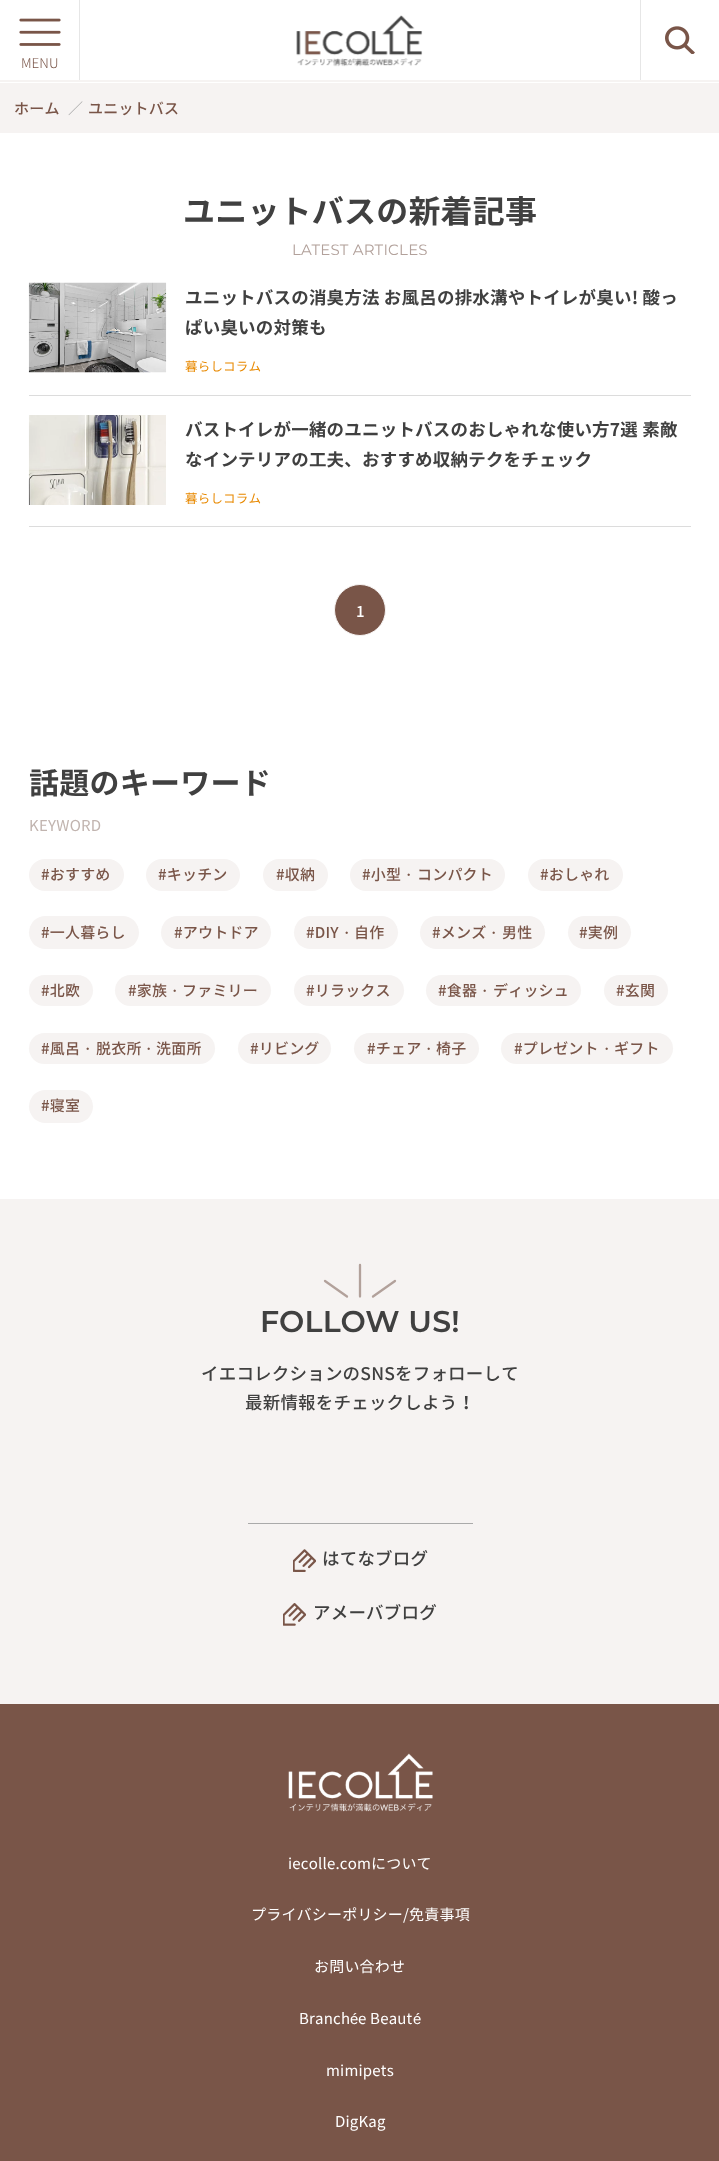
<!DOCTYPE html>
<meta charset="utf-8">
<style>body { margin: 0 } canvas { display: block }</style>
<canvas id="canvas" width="719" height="2161"></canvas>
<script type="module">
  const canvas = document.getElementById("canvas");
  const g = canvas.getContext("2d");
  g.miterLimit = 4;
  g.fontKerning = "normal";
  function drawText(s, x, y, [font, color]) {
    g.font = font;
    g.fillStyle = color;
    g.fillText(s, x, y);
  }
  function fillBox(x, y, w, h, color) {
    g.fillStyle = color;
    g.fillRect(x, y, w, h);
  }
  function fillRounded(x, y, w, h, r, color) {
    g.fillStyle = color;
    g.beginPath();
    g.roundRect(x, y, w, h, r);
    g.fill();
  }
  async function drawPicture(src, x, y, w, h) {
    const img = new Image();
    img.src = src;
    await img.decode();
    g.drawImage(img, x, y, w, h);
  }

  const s1 = ["300 13.5px Noto Sans JP", "#795548"];
  const s2 = ["500 15px Noto Sans JP", "#795548"];
  const s3 = ["15px Noto Sans JP", "#ACACAC"];
  const s4 = ["bold 32px Noto Sans JP", "#404040"];
  const s5 = ["15px Montserrat", "#B2A19B"];
  const s6 = ["bold 17.5px Noto Sans JP", "#404040"];
  const s7 = ["12.5px Noto Sans JP", "#E88900"];
  const s8 = ["500 15px Noto Sans JP", "#FFFFFF"];
  const s9 = ["bold 30px Noto Sans JP", "#404040"];
  const s10 = ["15px Noto Sans JP", "#C1B4AF"];
  const s11 = ["500 15px WenQuanYi Zen Hei", "#795548"];
  const s12 = ["600 30px Montserrat", "#404040"];
  const s13 = ["500 17.5px Noto Sans JP", "#404040"];
  const s14 = ["15px Noto Sans JP", "#FFFFFF"];
  const s15 = ["15px Liberation Sans", "#FFFFFF"];

  fillBox(0, 0, 719, 2161, "#FFFFFF");
  fillBox(0, 80, 719, 2, "#F6F3F2");
  fillBox(79, 0, 1, 80, "#E6E6E6");
  await drawPicture("pic1.png", 19, 18, 42, 28);
  drawText("MENU", 21, 68, s1);
  await drawPicture("pic2.png", 296, 15, 127, 52);
  fillBox(640, 0, 1, 80, "#E6E6E6");
  await drawPicture("pic3.png", 665, 26, 30, 28);
  fillBox(0, 83, 719, 50, "#F6F3F2");
  g.letterSpacing = "0.2px";
  drawText("ホーム", 14, 114, s2);
  drawText("／", 68, 114, s3);
  drawText("ユニットバス", 88, 114, s2);
  drawText("ユニットバスの新着記事", 183, 223, s4);
  drawText("LATEST ARTICLES", 292, 255, s5);
  fillBox(29, 395, 662, 1, "#DCDCDC");
  await drawPicture("pic4.png", 28, 282, 139, 91);
  drawText("ユニットバスの消臭方法 お風呂の排水溝やトイレが臭い! 酸っ", 185, 304, s6);
  drawText("ぱい臭いの対策も", 185, 334, s6);
  drawText("暮らしコラム", 185, 371, s7);
  fillBox(29, 526, 662, 1, "#DCDCDC");
  await drawPicture("pic5.png", 28, 415, 138, 90);
  drawText("バストイレが一緒のユニットバスのおしゃれな使い方7選 素敵", 185, 436, s6);
  drawText("なインテリアの工夫、おすすめ収納テクをチェック", 185, 466, s6);
  drawText("暮らしコラム", 185, 503, s7);
  g.fillStyle = "#795548";
  g.beginPath();
  g.arc(360, 610, 25.5, 0, Math.PI * 2);
  g.fill();
  g.strokeStyle = "#F6F3F2";
  g.stroke();
  drawText("1", 356, 617, s8);
  g.letterSpacing = "0.25px";
  drawText("話題のキーワード", 29, 794, s9);
  drawText("KEYWORD", 29, 831, s10);
  fillRounded(29, 859, 95, 32, 16, "#F6F3F2");
  g.letterSpacing = "0.2px";
  drawText("#おすすめ", 41, 880, s2);
  fillRounded(146, 859, 94, 32, 16, "#F6F3F2");
  drawText("#キッチン", 158, 880, s2);
  fillRounded(263, 859, 65, 32, 16, "#F6F3F2");
  drawText("#収納", 276, 880, s2);
  fillRounded(350, 859, 155, 32, 16, "#F6F3F2");
  drawText("#小型", 362, 880, s2);
  drawText("・", 401, 880, s11);
  drawText("コンパクト", 417, 880, s2);
  fillRounded(528, 859, 95, 32, 16, "#F6F3F2");
  drawText("#おしゃれ", 540, 880, s2);
  fillRounded(29, 916, 110, 33, 16.5, "#F6F3F2");
  drawText("#一人暮らし", 41, 938, s2);
  fillRounded(161, 916, 110, 33, 16.5, "#F6F3F2");
  drawText("#アウトドア", 174, 938, s2);
  fillRounded(294, 916, 104, 33, 16.5, "#F6F3F2");
  drawText("#DIY", 306, 938, s2);
  drawText("・", 339, 938, s11);
  drawText("自作", 354, 938, s2);
  fillRounded(420, 916, 125, 33, 16.5, "#F6F3F2");
  drawText("#メンズ", 432, 938, s2);
  drawText("・", 486, 938, s11);
  drawText("男性", 502, 938, s2);
  fillRounded(568, 916, 63, 33, 16.5, "#F6F3F2");
  drawText("#実例", 579, 938, s2);
  fillRounded(29, 975, 64, 31, 15.5, "#F6F3F2");
  drawText("#北欧", 41, 996, s2);
  fillRounded(115, 975, 156, 31, 15.5, "#F6F3F2");
  drawText("#家族", 128, 996, s2);
  drawText("・", 167, 996, s11);
  drawText("ファミリー", 182, 996, s2);
  fillRounded(294, 975, 110, 31, 15.5, "#F6F3F2");
  drawText("#リラックス", 306, 996, s2);
  fillRounded(426, 975, 155, 31, 15.5, "#F6F3F2");
  drawText("#食器", 438, 996, s2);
  drawText("・", 477, 996, s11);
  drawText("ディッシュ", 493, 996, s2);
  fillRounded(604, 975, 64, 31, 15.5, "#F6F3F2");
  drawText("#玄関", 616, 996, s2);
  fillRounded(29, 1033, 186, 31, 15.5, "#F6F3F2");
  drawText("#風呂", 41, 1054, s2);
  drawText("・", 80, 1054, s11);
  drawText("脱衣所", 96, 1054, s2);
  drawText("・", 141, 1054, s11);
  drawText("洗面所", 156, 1054, s2);
  fillRounded(238, 1033, 93, 31, 15.5, "#F6F3F2");
  drawText("#リビング", 250, 1054, s2);
  fillRounded(354, 1033, 125, 31, 15.5, "#F6F3F2");
  drawText("#チェア", 367, 1054, s2);
  drawText("・", 421, 1054, s11);
  drawText("椅子", 436, 1054, s2);
  fillRounded(501, 1033, 172, 31, 15.5, "#F6F3F2");
  drawText("#プレゼント", 514, 1054, s2);
  drawText("・", 599, 1054, s11);
  drawText("ギフト", 614, 1054, s2);
  fillRounded(29, 1090, 64, 33, 16.5, "#F6F3F2");
  drawText("#寝室", 41, 1111, s2);
  fillBox(0, 1704, 719, 457, "#795548");
  fillBox(0, 1199, 719, 505, "#F6F3F2");
  g.beginPath();
  g.moveTo(360, 1265);
  g.lineTo(360, 1296.5);
  g.moveTo(395, 1281);
  g.lineTo(373, 1296.5);
  g.strokeStyle = "#B2A19B";
  g.lineWidth = 2.3;
  g.lineCap = "round";
  g.stroke();
  g.beginPath();
  g.moveTo(325, 1281);
  g.lineTo(347, 1296.5);
  g.stroke();
  drawText("FOLLOW US!", 260, 1332, s12);
  drawText("イエコレクションのSNSをフォローして", 201, 1380, s13);
  drawText("最新情報をチェックしよう！", 245, 1409, s13);
  fillBox(248, 1523, 225, 1, "#AAAAAA");
  await drawPicture("pic6.png", 293, 1549, 23, 23);
  drawText("はてなブログ", 322, 1565, s13);
  await drawPicture("pic7.png", 283, 1603, 23, 23);
  drawText("アメーバブログ", 313, 1619, s13);
  await drawPicture("pic8.png", 288, 1753, 145, 59);
  drawText("iecolle.comについて", 288, 1869, s14);
  drawText("プライバシーポリシー/免責事項", 251, 1920, s14);
  drawText("お問い合わせ", 314, 1972, s14);
  drawText("Branch", 299, 2024, s14);
  drawText("é", 350, 2024, s15);
  drawText("e Beaut", 358, 2024, s14);
  drawText("é", 413, 2024, s15);
  drawText("mimipets", 326, 2076, s14);
  drawText("DigKag", 335, 2127, s14);
</script>
